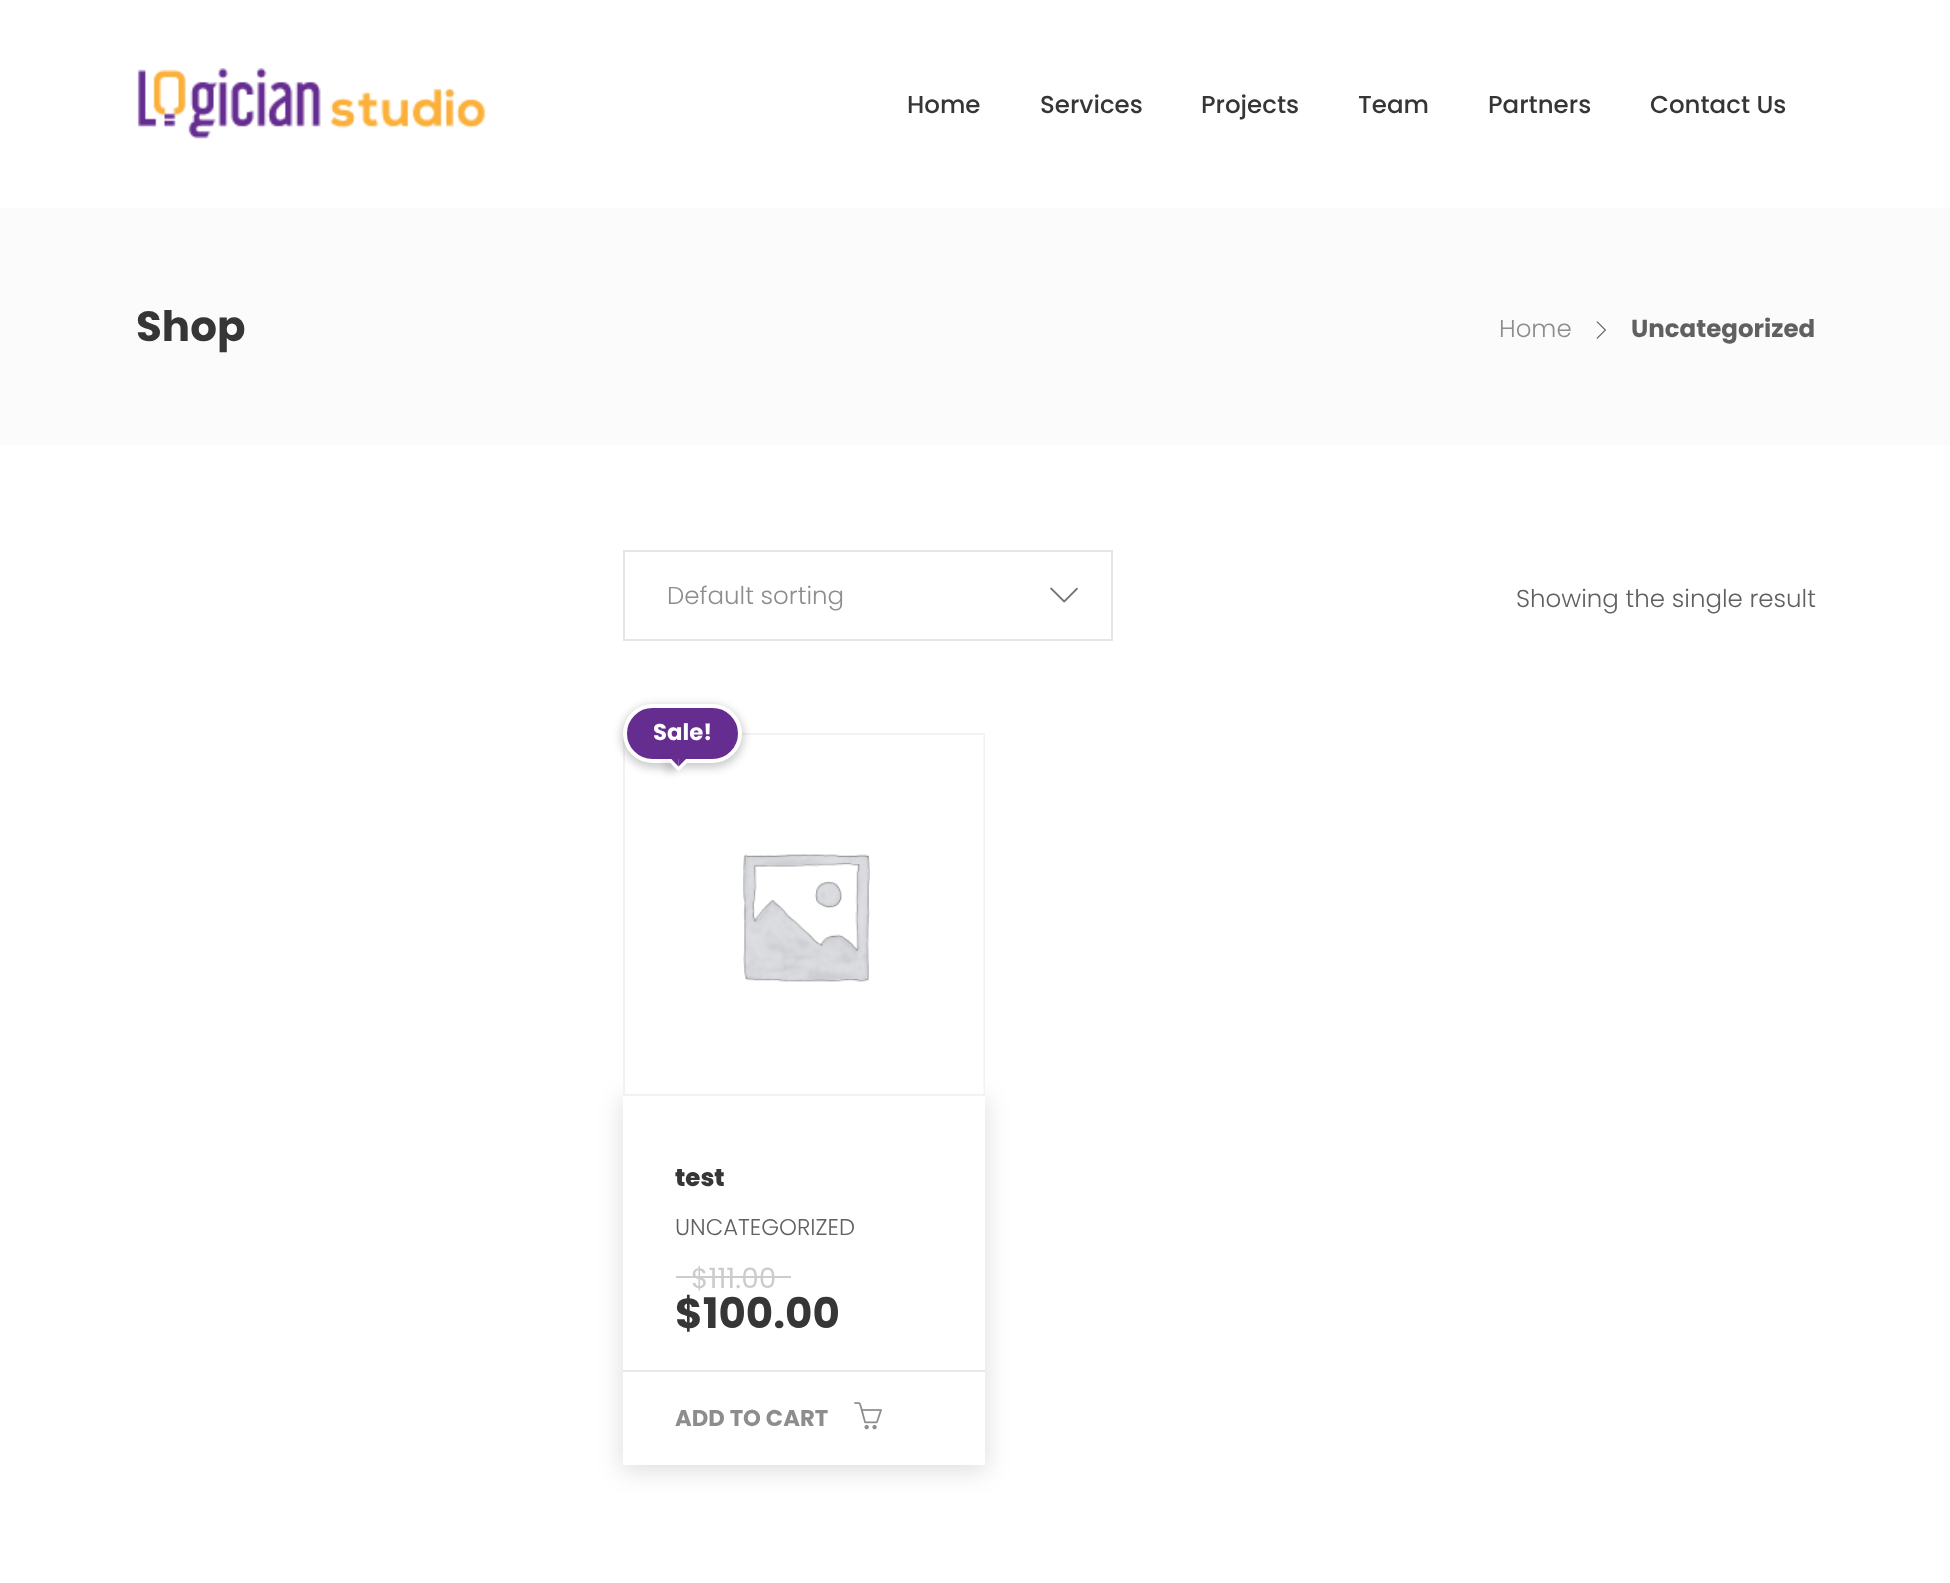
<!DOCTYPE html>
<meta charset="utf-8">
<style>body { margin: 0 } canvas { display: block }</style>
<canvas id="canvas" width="1950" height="1583"></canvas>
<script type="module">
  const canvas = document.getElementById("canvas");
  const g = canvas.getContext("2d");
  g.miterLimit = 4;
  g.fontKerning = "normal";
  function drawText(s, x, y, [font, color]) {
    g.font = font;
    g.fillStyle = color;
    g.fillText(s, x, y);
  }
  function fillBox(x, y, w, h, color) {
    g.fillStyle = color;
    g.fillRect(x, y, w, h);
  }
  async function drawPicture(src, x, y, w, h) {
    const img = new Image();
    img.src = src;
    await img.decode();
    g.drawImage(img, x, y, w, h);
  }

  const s1 = ["500 24.5px Poppins", "#363636"];
  const s2 = ["bold 42px Poppins", "#363636"];
  const s3 = ["300 24.5px Poppins", "#8D8D8D"];
  const s4 = ["bold 24.5px Poppins", "#606060"];
  const s5 = ["300 24.5px Poppins", "#606060"];
  const s6 = ["bold 22.75px Poppins", "#FFFFFF"];
  const s7 = ["800 24.5px Poppins", "#363636"];
  const s8 = ["300 22.75px Poppins", "#606060"];
  const s9 = ["28px Poppins", "#CCCCCC"];
  const s10 = ["bold 22.75px Poppins", "#8D8D8D"];

  fillBox(0, 0, 1950, 1583, "#FFFFFF");
  await drawPicture("pic1.png", 137, 68, 349, 71);
  drawText("Home", 907, 113, s1);
  drawText("Services", 1040, 113, s1);
  drawText("Projects", 1201, 113, s1);
  drawText("Team", 1358, 113, s1);
  drawText("Partners", 1488, 113, s1);
  drawText("Contact Us", 1650, 113, s1);
  fillBox(0, 208, 1950, 237, "#FBFBFB");
  drawText("Shop", 136, 341, s2);
  drawText("Home", 1499, 337, s3);
  await drawPicture("pic2.png", 1596, 321, 10, 18);
  drawText("Uncategorized", 1631, 337, s4);
  g.strokeStyle = "#E5E5E5";
  g.lineWidth = 2;
  g.strokeRect(624, 551, 488, 89);
  drawText("Default sorting", 667, 604, s3);
  await drawPicture("pic3.png", 1050, 587, 28, 16);
  drawText("Showing the single result", 1516, 607, s5);
  g.fillStyle = "rgba(0, 0, 0, 0.12)";
  g.filter = "blur(11.5px)";
  g.beginPath();
  g.rect(621, 1099, 366, 373);
  g.fill();
  g.filter = "none";
  g.strokeStyle = "#F2F2F2";
  g.strokeRect(624, 734, 360, 361);
  await drawPicture("pic4.png", 625, 735, 359, 359);
  g.fillStyle = "rgba(0, 0, 0, 0.2)";
  g.filter = "blur(4.5px)";
  g.beginPath();
  g.roundRect(621, 705, 123, 63, 31.5);
  g.fill();
  g.filter = "none";
  g.fillStyle = "#662D91";
  g.beginPath();
  g.roundRect(625, 706, 115, 55, 27.5);
  g.fill();
  g.strokeStyle = "#FFFFFF";
  g.lineWidth = 4;
  g.stroke();
  drawText("Sale!", 653, 740, s6);
  g.fillStyle = "rgba(0, 0, 0, 0.15)";
  g.filter = "blur(4.5px)";
  g.beginPath();
  g.rect(665, 761, 11, 11);
  g.fill();
  g.filter = "none";
  g.fillStyle = "#FFFFFF";
  g.beginPath();
  g.moveTo(691, 759);
  g.lineTo(678.5, 771.5);
  g.lineTo(678.5, 759);
  g.closePath();
  g.fill();
  g.beginPath();
  g.moveTo(678.5, 771.5);
  g.lineTo(666.5, 759);
  g.lineTo(678.5, 759);
  g.closePath();
  g.fill();
  g.fillStyle = "#662D91";
  g.beginPath();
  g.moveTo(691, 754);
  g.lineTo(678.5, 766.5);
  g.lineTo(678.5, 754);
  g.closePath();
  g.fill();
  g.beginPath();
  g.moveTo(678.5, 766.5);
  g.lineTo(666.5, 754);
  g.lineTo(678.5, 754);
  g.closePath();
  g.fill();
  fillBox(623, 1096, 362, 369, "#FFFFFF");
  fillBox(623, 1370, 362, 2, "#E9E9E9");
  drawText("test", 675, 1186, s7);
  drawText("UNCATEGORIZED", 675, 1235, s8);
  drawText("$111.00", 691, 1288, s9);
  fillBox(676, 1276, 15, 2, "#CCCCCC");
  fillBox(691, 1276, 100, 2, "#CCCCCC");
  drawText("$100.00", 675, 1328, s2);
  drawText("ADD TO CART", 675, 1426, s10);
  await drawPicture("pic5.png", 854, 1402, 28, 28);
</script>
